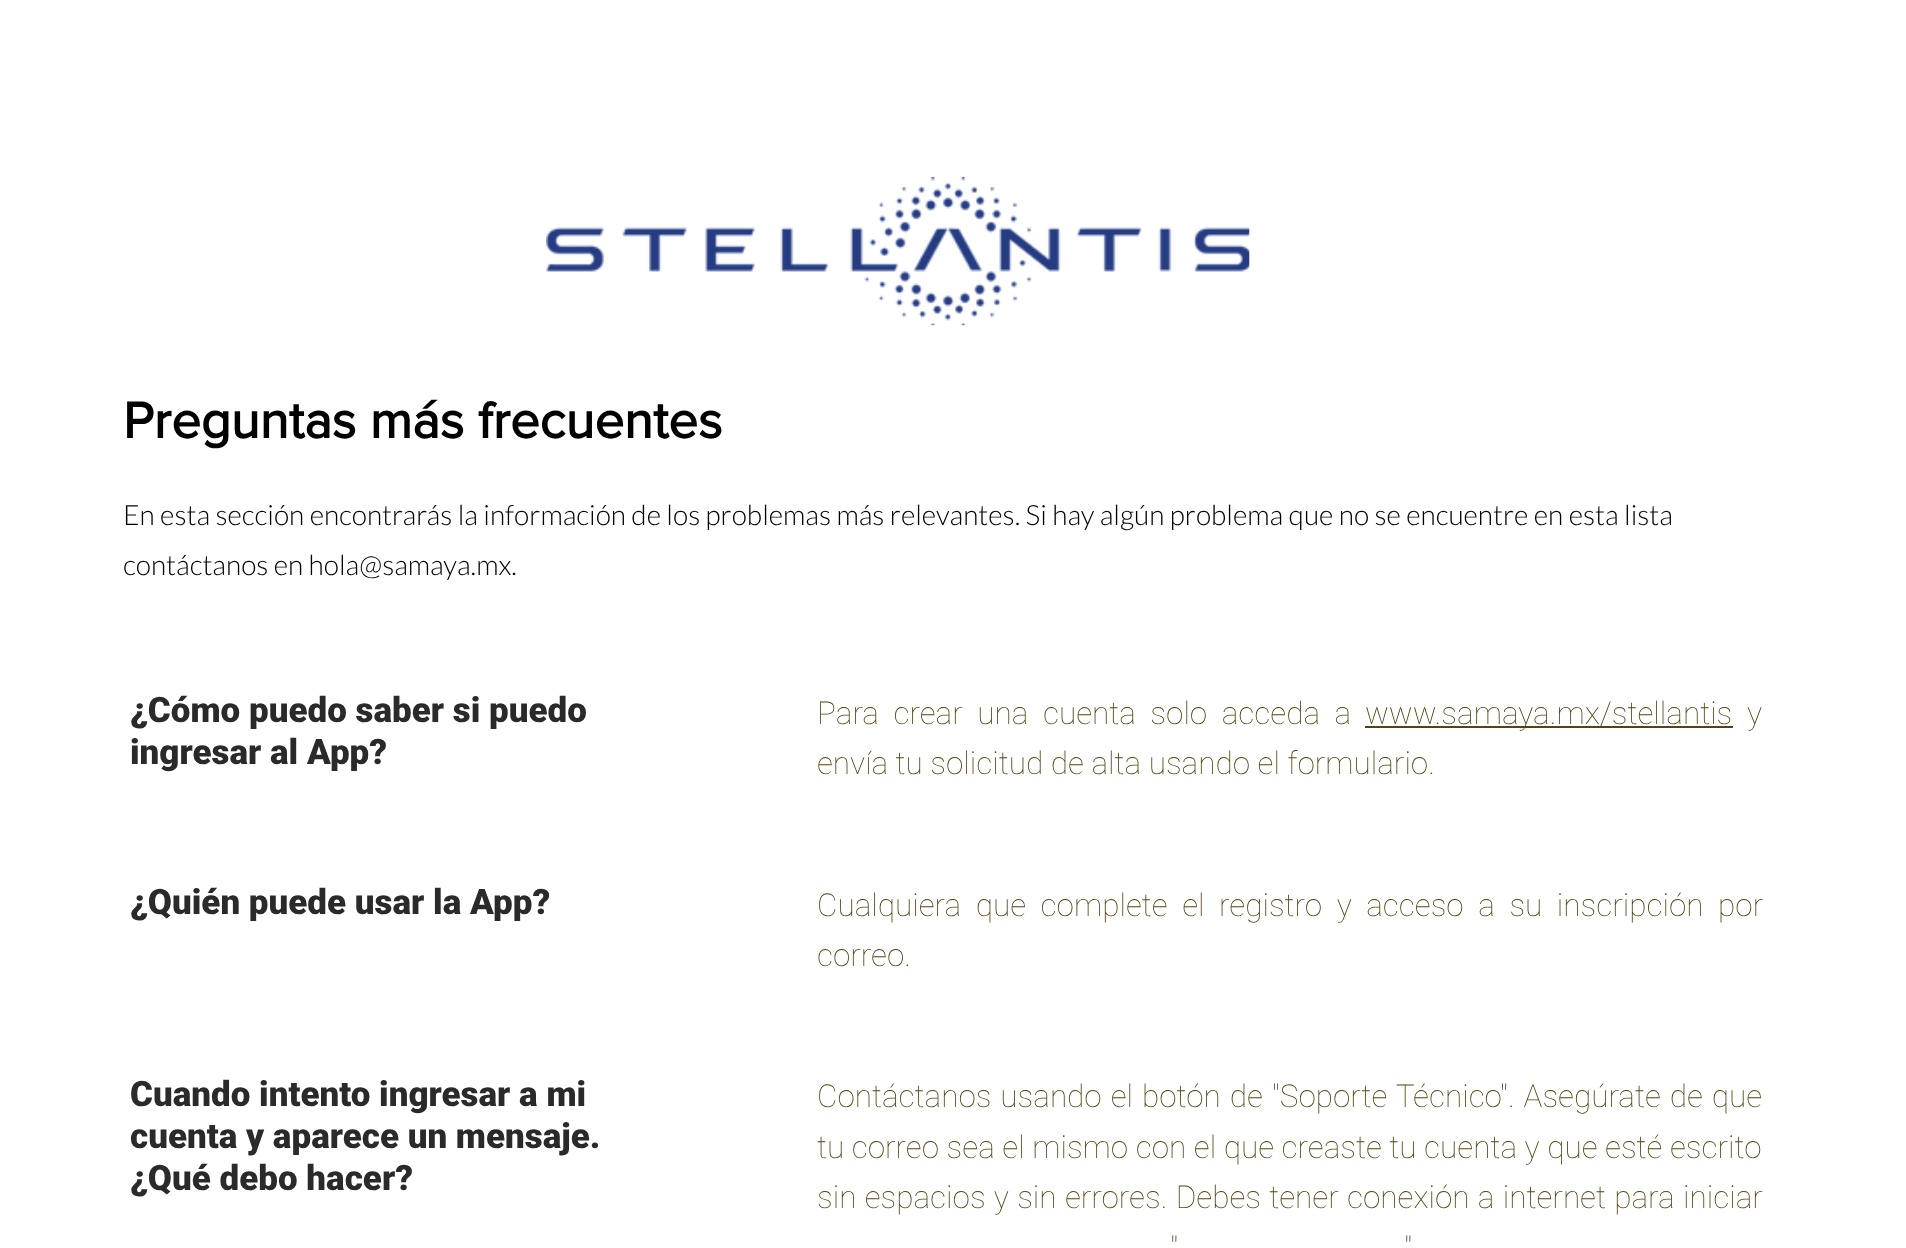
<!DOCTYPE html>
<meta charset="utf-8">
<style>body { margin: 0 } canvas { display: block }</style>
<canvas id="canvas" width="1906" height="1248"></canvas>
<script type="module">
  const canvas = document.getElementById("canvas");
  const g = canvas.getContext("2d");
  g.miterLimit = 4;
  g.fontKerning = "normal";
  function drawText(s, x, y, [font, color]) {
    g.font = font;
    g.fillStyle = color;
    g.fillText(s, x, y);
  }
  function fillBox(x, y, w, h, color) {
    g.fillStyle = color;
    g.fillRect(x, y, w, h);
  }
  async function drawPicture(src, x, y, w, h) {
    const img = new Image();
    img.src = src;
    await img.decode();
    g.drawImage(img, x, y, w, h);
  }

  const s1 = ["bold 52.5px 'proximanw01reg'", "#000000"];
  const s2 = ["300 28px Lato", "#000000"];
  const s3 = ["900 35px Roboto", "#2A2A2A"];
  const s4 = ["100 31.5px Roboto", "#554412"];

  fillBox(0, 0, 1906, 1248, "#FFFFFF");
  await drawPicture("pic1.png", 546, 176, 704, 150);
  drawText("Preguntas más frecuentes", 123, 438, s1);
  drawText("En esta sección encontrarás la información de los problemas más relevantes. Si hay algún problema que no se encuentre en esta lista", 123, 525, s2);
  drawText("contáctanos en hola@samaya.mx.", 123, 575, s2);
  drawText("¿Cómo puedo saber si puedo", 130, 722, s3);
  drawText("ingresar al App?", 130, 764, s3);
  g.wordSpacing = "7px";
  drawText("Para crear una cuenta solo acceda a", 817, 724, s4);
  fillBox(1365, 726, 368, 2, "#554412");
  g.wordSpacing = "0px";
  drawText("www.samaya.mx/stellantis", 1365, 724, s4);
  drawText("y", 1747, 724, s4);
  drawText("envía tu solicitud de alta usando el formulario.", 817, 774, s4);
  drawText("¿Quién puede usar la App?", 130, 914, s3);
  g.wordSpacing = "7px";
  drawText("Cualquiera que complete el registro y acceso a su inscripción por", 817, 916, s4);
  g.wordSpacing = "0px";
  drawText("correo.", 817, 966, s4);
  drawText("Cuando intento ingresar a mi", 130, 1106, s3);
  drawText("cuenta y aparece un mensaje.", 130, 1148, s3);
  drawText("¿Qué debo hacer?", 130, 1190, s3);
  g.wordSpacing = "1.4px";
  drawText("Contáctanos usando el botón de \"Soporte Técnico\". Asegúrate de que", 817, 1107, s4);
  g.wordSpacing = "0px";
  drawText("tu correo sea el mismo con el que creaste tu cuenta y que esté escrito", 817, 1158, s4);
  g.wordSpacing = "0.75px";
  drawText("sin espacios y sin errores. Debes tener conexión a internet para iniciar", 817, 1208, s4);
  g.wordSpacing = "7px";
  drawText("\"", 1170, 1259, s4);
  drawText("\"", 1404, 1259, s4);
</script>
